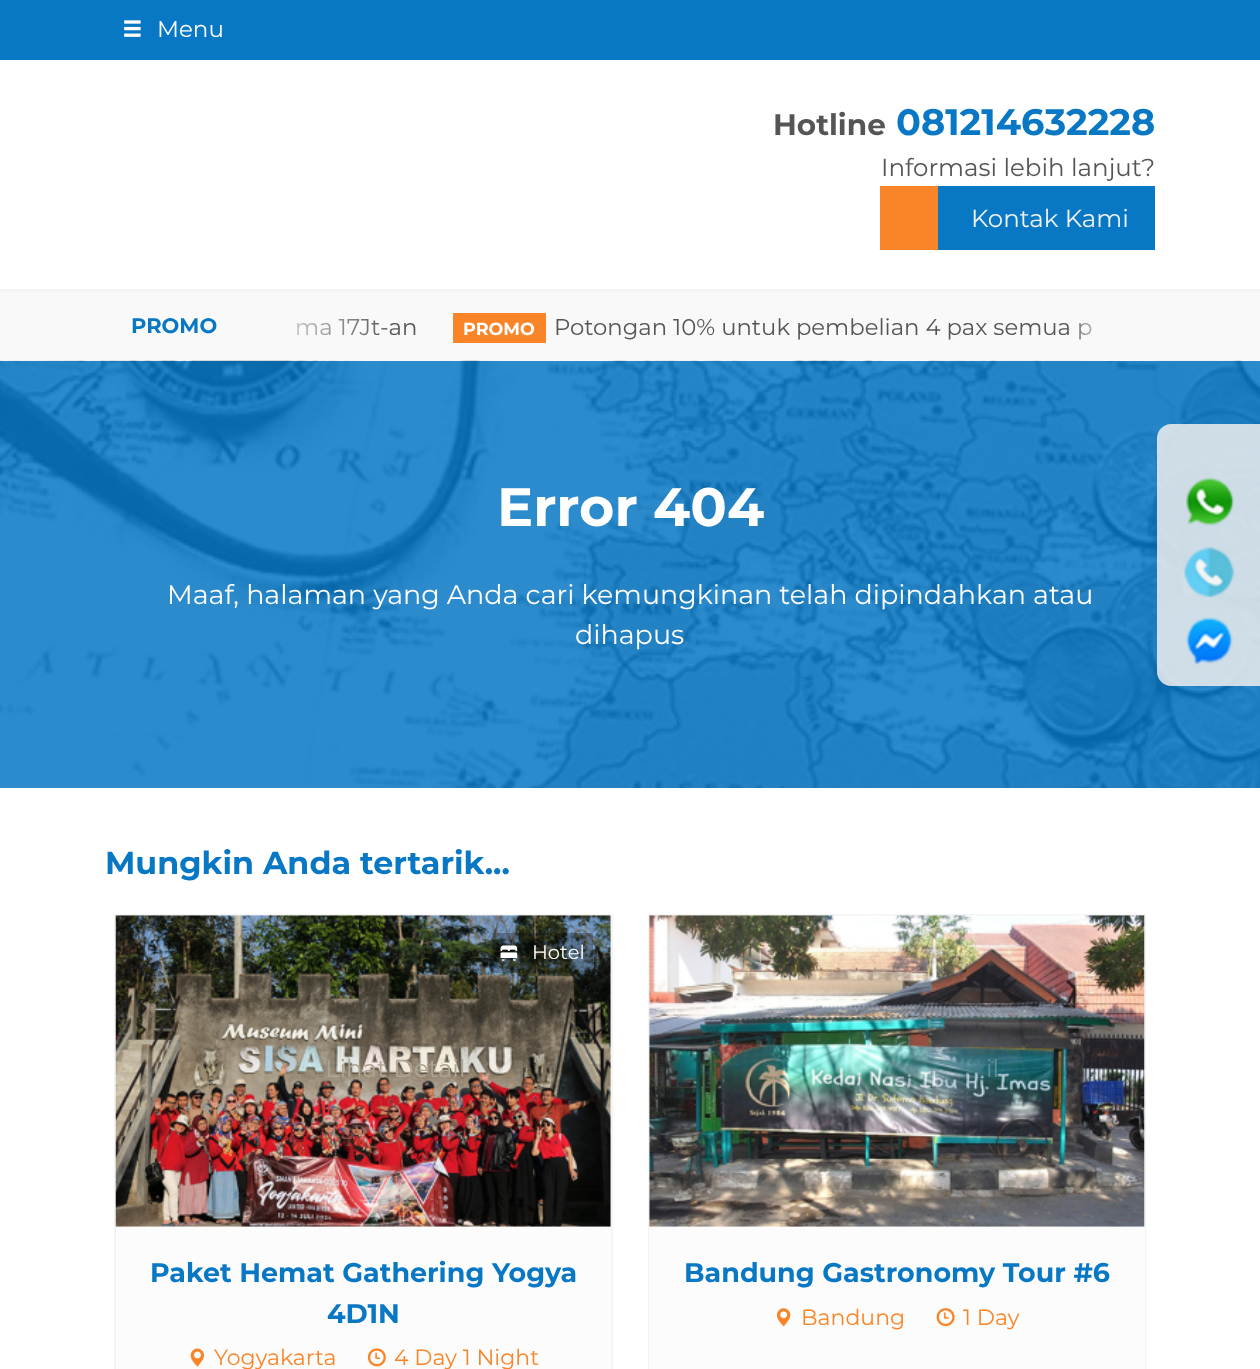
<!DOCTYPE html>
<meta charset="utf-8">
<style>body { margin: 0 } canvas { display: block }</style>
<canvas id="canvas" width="1260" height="1369"></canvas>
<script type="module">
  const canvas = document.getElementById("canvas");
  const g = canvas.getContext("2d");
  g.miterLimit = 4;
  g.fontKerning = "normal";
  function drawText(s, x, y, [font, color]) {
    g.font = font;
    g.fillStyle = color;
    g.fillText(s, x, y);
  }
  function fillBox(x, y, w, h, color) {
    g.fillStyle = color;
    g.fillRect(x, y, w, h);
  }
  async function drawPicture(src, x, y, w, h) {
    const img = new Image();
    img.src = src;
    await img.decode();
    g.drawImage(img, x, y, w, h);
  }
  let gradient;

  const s1 = ["23px Montserrat", "#FFFFFF"];
  const s2 = ["bold 29.5px Montserrat", "#555555"];
  const s3 = ["bold 36.75px Montserrat", "#0877C4"];
  const s4 = ["24.5px Montserrat", "#555555"];
  const s5 = ["24.5px Montserrat", "#F1F1F1"];
  const s6 = ["22.75px Montserrat", "#555555"];
  const s7 = ["bold 21px Montserrat", "#0877C4"];
  const s8 = ["bold 17.5px Montserrat", "#FFFFFF"];
  const s9 = ["bold 54px Montserrat", "#FFFFFF"];
  const s10 = ["26.95px Montserrat", "#FFFFFF"];
  const s11 = ["bold 31.8px Montserrat", "#0877C4"];
  const s12 = ["19.5px Montserrat", "#FFFFFF"];
  const s13 = ["24.5px Montserrat", "#AEA495"];
  const s14 = ["bold 26.95px Montserrat", "#0877C4"];
  const s15 = ["22px Montserrat", "#F98528"];
  const s16 = ["24.5px Montserrat", "#5B9195"];

  fillBox(0, 0, 1260, 1369, "#0877C4");
  await drawPicture("pic1.png", 124, 20, 17, 17);
  drawText("Menu", 157, 37, s1);
  fillBox(0, 60, 1260, 229, "#FFFFFF");
  fillBox(0, 289, 1260, 2, "#F4F4F4");
  drawText("Hotline", 773, 135, s2);
  drawText("081214632228", 896, 135, s3);
  drawText("Informasi lebih lanjut?", 881, 176, s4);
  fillBox(938, 186, 217, 64, "#0877C4");
  fillBox(880, 186, 58, 64, "#F98528");
  drawText("Kontak Kami", 971, 227, s5);
  fillBox(0, 291, 1260, 70, "#F9F9F9");
  drawText("ma 17Jt-an", 295, 335, s6);
  gradient = g.createLinearGradient(105, 326, 392, 326);
  gradient.addColorStop(0, "#F9F9F9");
  gradient.addColorStop(0.5, "#F9F9F9");
  gradient.addColorStop(1, "rgba(249, 249, 249, 0)");
  g.fillStyle = gradient;
  g.fillRect(297, 319, 90, 17);
  drawText("PROMO", 131, 333, s7);
  fillBox(453, 313, 93, 30, "#F98528");
  drawText("PROMO", 463, 335, s8);
  drawText("Potongan 10% untuk pembelian 4 pax semua p", 554, 335, s6);
  await drawPicture("pic2.png", 0, 360, 1260, 428);
  gradient = g.createLinearGradient(1155, 326, 1068, 326);
  gradient.addColorStop(0, "#F9F9F9");
  gradient.addColorStop(0.5, "#F9F9F9");
  gradient.addColorStop(1, "rgba(249, 249, 249, 0)");
  g.fillStyle = gradient;
  g.fillRect(1079, 323, 75, 38);
  drawText("Error 404", 497, 526, s9);
  drawText("Maaf, halaman yang Anda cari kemungkinan telah dipindahkan atau", 167, 604, s10);
  drawText("dihapus", 575, 644, s10);
  g.fillStyle = "rgba(238, 238, 238, 0.85)";
  g.beginPath();
  g.moveTo(1171, 424);
  g.lineTo(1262, 424);
  g.lineTo(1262, 686);
  g.lineTo(1171, 686);
  g.bezierCurveTo(1163.5, 686, 1157, 679.5, 1157, 672);
  g.lineTo(1157, 438);
  g.bezierCurveTo(1157, 430.5, 1163.5, 424, 1171, 424);
  g.closePath();
  g.fill();
  await drawPicture("pic3.png", 1186, 477, 48, 49);
  await drawPicture("pic4.png", 1184, 547, 51, 51);
  await drawPicture("pic5.png", 1186, 617, 47, 48);
  fillBox(0, 788, 1260, 581, "#FFFFFF");
  drawText("Mungkin Anda tertarik...", 105, 874, s11);
  g.strokeStyle = "#F4F4F4";
  g.lineWidth = 2;
  g.strokeRect(115, 915, 497, 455);
  await drawPicture("pic7.png", 115, 915, 496, 312);
  fillBox(492, 933, 101, 40, "rgba(0, 0, 0, 0.25)");
  await drawPicture("pic6.png", 500, 945, 18, 16);
  drawText("Hotel", 532, 959, s12);
  drawText("Lihat Detail", 325, 1077, s13);
  fillBox(116, 1227, 495, 142, "#FCFCFC");
  drawText("Paket Hemat Gathering Yogya", 150, 1282, s14);
  drawText("4D1N", 327, 1323, s14);
  await drawPicture("pic8.png", 190, 1348, 15, 19);
  drawText("Yogyakarta", 214, 1365, s15);
  await drawPicture("pic9.png", 367, 1348, 19, 19);
  drawText("4 Day 1 Night", 394, 1365, s15);
  g.strokeRect(649, 915, 496, 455);
  await drawPicture("pic10.png", 649, 915, 496, 312);
  drawText("il", 986, 1077, s16);
  fillBox(649, 1227, 496, 142, "#FCFCFC");
  drawText("Bandung Gastronomy Tour #6", 684, 1282, s14);
  await drawPicture("pic11.png", 776, 1308, 15, 19);
  drawText("Bandung", 801, 1325, s15);
  await drawPicture("pic12.png", 936, 1308, 19, 19);
  drawText("1 Day", 963, 1325, s15);
</script>
